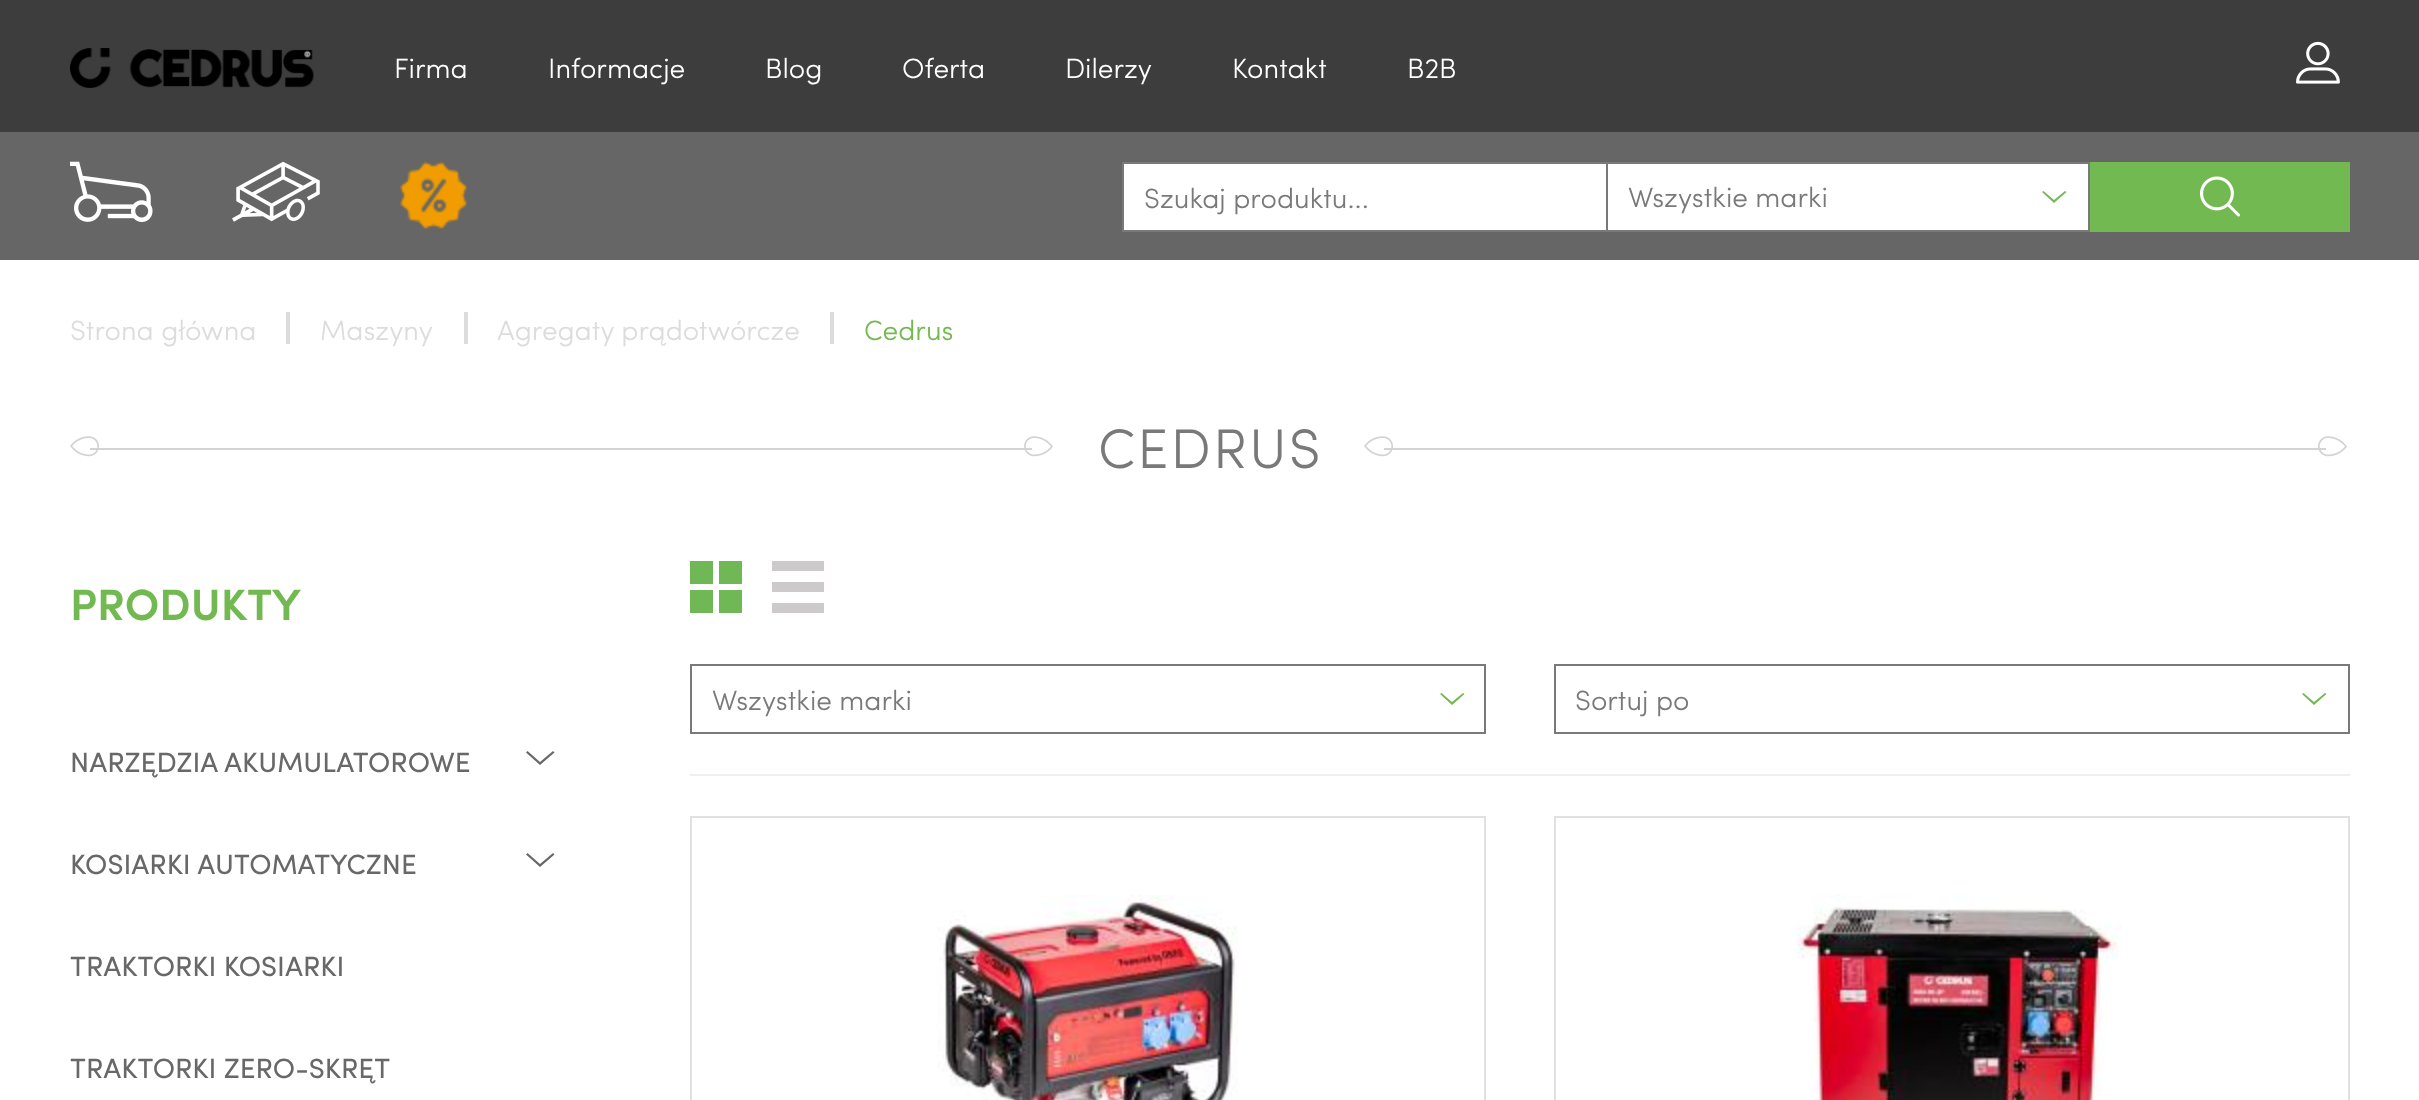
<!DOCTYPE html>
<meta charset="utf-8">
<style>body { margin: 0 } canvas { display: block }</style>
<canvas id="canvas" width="2419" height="1100"></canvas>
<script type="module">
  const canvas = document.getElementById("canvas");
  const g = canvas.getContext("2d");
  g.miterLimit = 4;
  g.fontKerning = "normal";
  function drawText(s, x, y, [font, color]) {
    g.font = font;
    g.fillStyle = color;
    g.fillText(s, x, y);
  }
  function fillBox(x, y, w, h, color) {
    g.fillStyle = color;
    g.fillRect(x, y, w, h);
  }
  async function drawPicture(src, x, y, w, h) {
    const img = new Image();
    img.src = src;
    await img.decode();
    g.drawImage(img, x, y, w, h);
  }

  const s1 = ["300 28px Sofia", "#FFFFFF"];
  const s2 = ["300 28px Sofia", "#797979"];
  const s3 = ["300 28px Sofia", "#DCDCDC"];
  const s4 = ["300 28px Sofia", "#73B951"];
  const s5 = ["300 56px Sofia", "#797979"];
  const s6 = ["600 44px Sofia", "#73B951"];
  const s7 = ["28px Sofia", "#686868"];

  fillBox(0, 0, 2419, 1100, "#FFFFFF");
  fillBox(0, 0, 2419, 132, "#3D3D3D");
  await drawPicture("pic1.png", 70, 48, 244, 40);
  drawText("Firma", 394, 78, s1);
  drawText("Informacje", 548, 78, s1);
  drawText("Blog", 765, 78, s1);
  drawText("Oferta", 902, 78, s1);
  drawText("Dilerzy", 1065, 78, s1);
  drawText("Kontakt", 1232, 78, s1);
  drawText("B2B", 1407, 78, s1);
  await drawPicture("pic2.png", 2296, 41, 44, 43);
  fillBox(0, 132, 2419, 128, "#666666");
  await drawPicture("pic3.png", 70, 161, 83, 61);
  await drawPicture("pic4.png", 232, 161, 88, 61);
  await drawPicture("pic5.png", 400, 162, 67, 67);
  fillBox(1124, 164, 482, 66, "#FFFFFF");
  fillBox(1122, 162, 484, 2, "#797979");
  fillBox(1122, 230, 484, 2, "#797979");
  fillBox(1122, 162, 2, 70, "#797979");
  drawText("Szukaj produktu...", 1144, 208, s2);
  g.fillStyle = "#FFFFFF";
  g.beginPath();
  g.rect(1607, 163, 482, 68);
  g.fill();
  g.strokeStyle = "#797979";
  g.lineWidth = 2;
  g.stroke();
  drawText("Wszystkie marki", 1628, 207, s2);
  g.fillStyle = "#73B956";
  g.beginPath();
  g.moveTo(2066.5, 192);
  g.lineTo(2054, 203);
  g.lineTo(2042, 192);
  g.lineTo(2043.5, 191);
  g.lineTo(2054, 200);
  g.lineTo(2065, 191);
  g.closePath();
  g.fill();
  fillBox(2090, 162, 260, 70, "#73B951");
  await drawPicture("pic6.png", 2200, 176, 40, 41);
  fillBox(286, 312, 4, 32, "#DCDCDC");
  drawText("Strona główna", 70, 340, s3);
  fillBox(464, 312, 4, 32, "#DCDCDC");
  drawText("Maszyny", 320, 340, s3);
  fillBox(830, 312, 4, 32, "#DCDCDC");
  drawText("Agregaty prądotwórcze", 497, 340, s3);
  drawText("Cedrus", 864, 340, s4);
  await drawPicture("pic7.png", 70, 436, 29, 21);
  await drawPicture("pic8.png", 1024, 436, 29, 21);
  fillBox(90, 448, 942, 2, "#D3D3D3");
  g.letterSpacing = "2px";
  drawText("CEDRUS", 1098, 468, s5);
  await drawPicture("pic7.png", 1364, 436, 29, 21);
  await drawPicture("pic8.png", 2318, 436, 29, 21);
  fillBox(1384, 448, 942, 2, "#D3D3D3");
  g.letterSpacing = "0px";
  drawText("PRODUKTY", 70, 620, s6);
  drawText("NARZĘDZIA AKUMULATOROWE", 70, 772, s7);
  g.beginPath();
  g.moveTo(554.5, 752.5);
  g.lineTo(540, 765);
  g.lineTo(526, 752.5);
  g.lineTo(527.5, 751);
  g.lineTo(540, 762);
  g.lineTo(553, 751);
  g.closePath();
  g.fill();
  drawText("KOSIARKI AUTOMATYCZNE", 70, 874, s7);
  g.beginPath();
  g.moveTo(554.5, 854.5);
  g.lineTo(540, 867);
  g.lineTo(526, 854.5);
  g.lineTo(527.5, 853);
  g.lineTo(540, 864);
  g.lineTo(553, 853);
  g.closePath();
  g.fill();
  drawText("TRAKTORKI KOSIARKI", 70, 976, s7);
  drawText("TRAKTORKI ZERO-SKRĘT", 70, 1078, s7);
  g.fillStyle = "#70B855";
  g.beginPath();
  g.moveTo(690, 590);
  g.lineTo(713, 590);
  g.lineTo(713, 613);
  g.lineTo(690, 613);
  g.closePath();
  g.moveTo(690, 561);
  g.lineTo(713, 561);
  g.lineTo(713, 584);
  g.lineTo(690, 584);
  g.closePath();
  g.moveTo(719, 590);
  g.lineTo(742, 590);
  g.lineTo(742, 613);
  g.lineTo(719, 613);
  g.closePath();
  g.moveTo(719, 561);
  g.lineTo(742, 561);
  g.lineTo(742, 584);
  g.lineTo(719, 584);
  g.closePath();
  g.fill();
  g.fillStyle = "#CCCACB";
  g.beginPath();
  g.moveTo(772, 561);
  g.lineTo(824, 561);
  g.lineTo(824, 571);
  g.lineTo(772, 571);
  g.closePath();
  g.moveTo(772, 603);
  g.lineTo(824, 603);
  g.lineTo(824, 613);
  g.lineTo(772, 613);
  g.closePath();
  g.moveTo(772, 582);
  g.lineTo(824, 582);
  g.lineTo(824, 592);
  g.lineTo(772, 592);
  g.closePath();
  g.fill();
  fillBox(690, 774, 1660, 2, "#EFEFEF");
  g.strokeRect(691, 665, 794, 68);
  drawText("Wszystkie marki", 712, 710, s2);
  g.fillStyle = "#73B956";
  g.beginPath();
  g.moveTo(1464.5, 694);
  g.lineTo(1452, 705);
  g.lineTo(1440, 694);
  g.lineTo(1441.5, 693);
  g.lineTo(1452, 702);
  g.lineTo(1463, 693);
  g.closePath();
  g.fill();
  g.strokeRect(1555, 665, 794, 68);
  drawText("Sortuj po", 1575, 710, s2);
  g.fillStyle = "#73B956";
  g.beginPath();
  g.moveTo(2326.5, 694);
  g.lineTo(2314, 705);
  g.lineTo(2302, 694);
  g.lineTo(2303.5, 693);
  g.lineTo(2314, 702);
  g.lineTo(2325, 693);
  g.closePath();
  g.fill();
  g.strokeStyle = "#E1E1E1";
  g.strokeRect(691, 817, 794, 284);
  await drawPicture("pic9.png", 937, 895, 301, 205);
  g.strokeRect(1555, 817, 794, 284);
  await drawPicture("pic10.png", 1791, 894, 331, 206);
</script>
